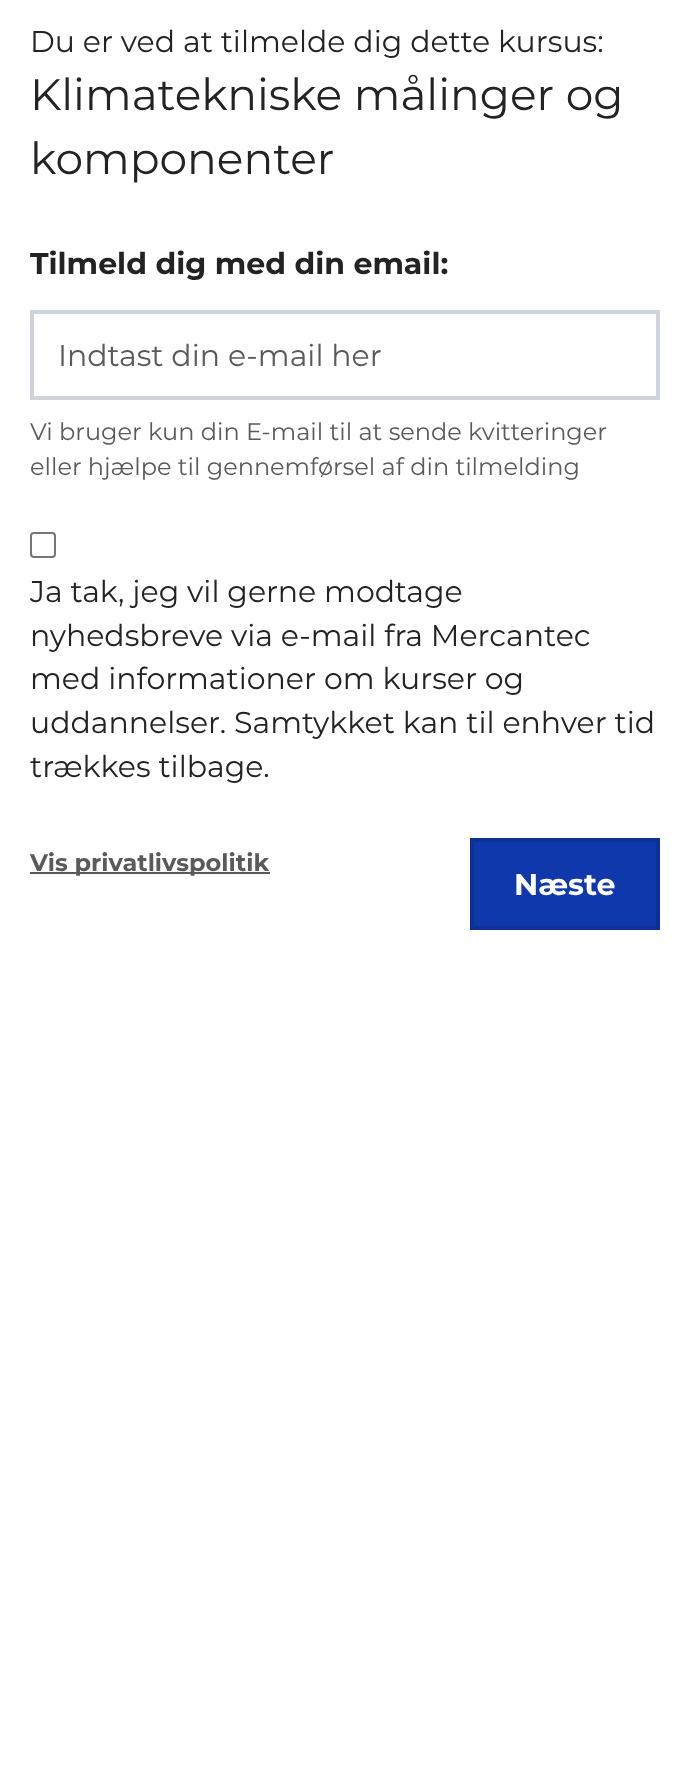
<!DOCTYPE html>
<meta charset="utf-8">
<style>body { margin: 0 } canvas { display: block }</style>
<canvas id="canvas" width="690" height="1766"></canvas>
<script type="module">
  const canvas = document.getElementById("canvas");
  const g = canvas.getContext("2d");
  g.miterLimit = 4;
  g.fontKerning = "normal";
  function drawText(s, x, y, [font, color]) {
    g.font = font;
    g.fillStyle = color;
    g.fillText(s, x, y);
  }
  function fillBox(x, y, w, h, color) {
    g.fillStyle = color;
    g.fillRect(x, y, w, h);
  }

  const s1 = ["30px Montserrat", "#232323"];
  const s2 = ["44px Montserrat", "#232323"];
  const s3 = ["bold 30px Montserrat", "#232323"];
  const s4 = ["30px Montserrat", "#5A5A5A"];
  const s5 = ["24px Montserrat", "#5A5A5A"];
  const s6 = ["bold 24px Montserrat", "#5A5A5A"];
  const s7 = ["bold 30px Montserrat", "#FFFFFF"];

  fillBox(0, 0, 690, 1766, "#FFFFFF");
  drawText("Du er ved at tilmelde dig dette kursus:", 30, 52, s1);
  drawText("Klimatekniske målinger og", 30, 110, s2);
  drawText("komponenter", 30, 174, s2);
  drawText("Tilmeld dig med din email:", 30, 274, s3);
  g.strokeStyle = "#CED4DA";
  g.lineWidth = 4;
  g.strokeRect(32, 312, 626, 86);
  drawText("Indtast din e-mail her", 58, 366, s4);
  drawText("Vi bruger kun din E-mail til at sende kvitteringer", 30, 440, s5);
  drawText("eller hjælpe til gennemførsel af din tilmelding", 30, 475, s5);
  g.beginPath();
  g.roundRect(31, 533, 24, 24, 3);
  g.strokeStyle = "#767676";
  g.lineWidth = 2;
  g.stroke();
  drawText("Ja tak, jeg vil gerne modtage", 30, 602, s1);
  drawText("nyhedsbreve via e-mail fra Mercantec", 30, 646, s1);
  drawText("med informationer om kurser og", 30, 689, s1);
  drawText("uddannelser. Samtykket kan til enhver tid", 30, 733, s1);
  drawText("trækkes tilbage.", 30, 777, s1);
  fillBox(30, 872, 240, 2, "#5A5A5A");
  drawText("Vis privatlivspolitik", 30, 871, s6);
  g.fillStyle = "#0E38AB";
  g.beginPath();
  g.rect(472, 840, 186, 88);
  g.fill();
  g.strokeStyle = "#0C3093";
  g.lineWidth = 4;
  g.stroke();
  drawText("Næste", 514, 895, s7);
</script>
